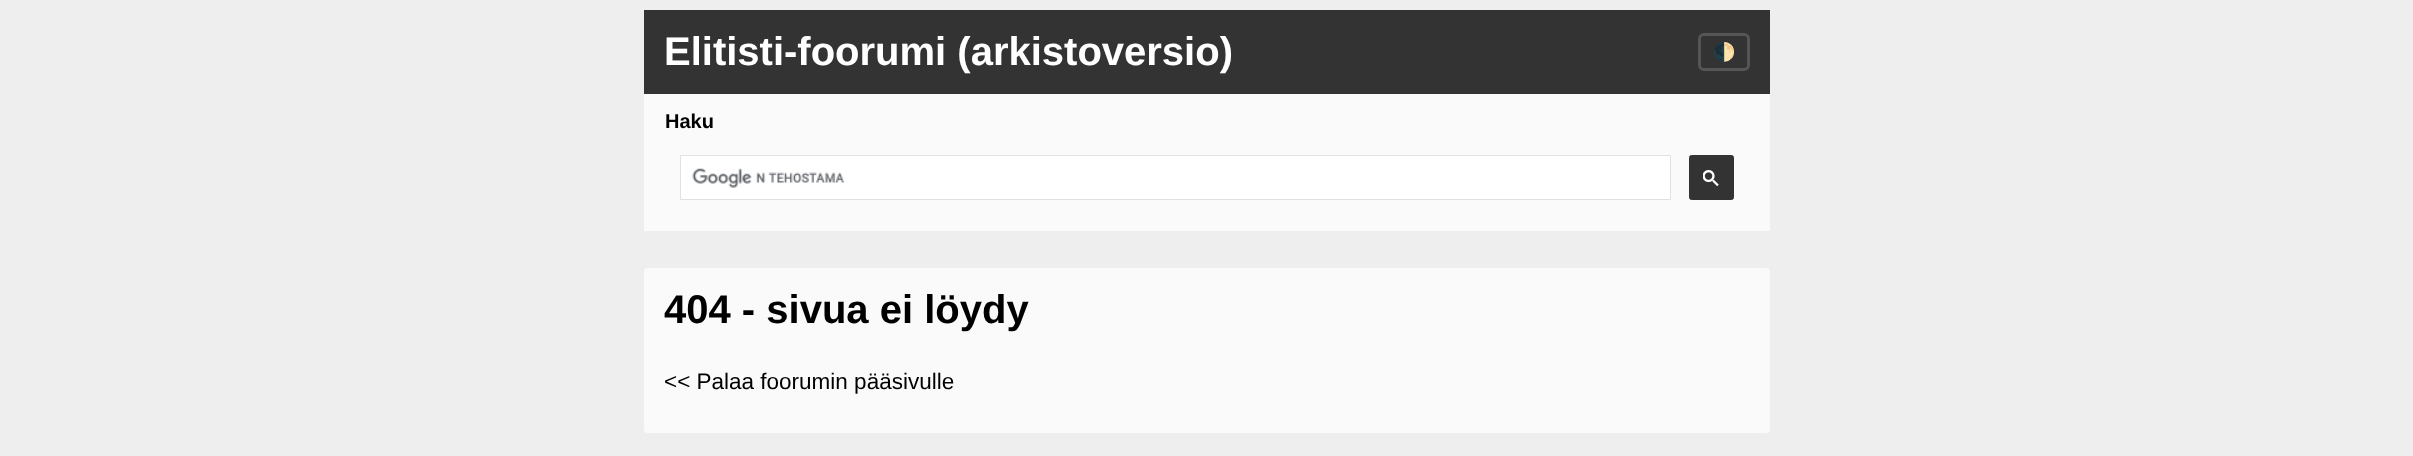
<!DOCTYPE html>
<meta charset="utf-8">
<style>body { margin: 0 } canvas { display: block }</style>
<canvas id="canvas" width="2413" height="456"></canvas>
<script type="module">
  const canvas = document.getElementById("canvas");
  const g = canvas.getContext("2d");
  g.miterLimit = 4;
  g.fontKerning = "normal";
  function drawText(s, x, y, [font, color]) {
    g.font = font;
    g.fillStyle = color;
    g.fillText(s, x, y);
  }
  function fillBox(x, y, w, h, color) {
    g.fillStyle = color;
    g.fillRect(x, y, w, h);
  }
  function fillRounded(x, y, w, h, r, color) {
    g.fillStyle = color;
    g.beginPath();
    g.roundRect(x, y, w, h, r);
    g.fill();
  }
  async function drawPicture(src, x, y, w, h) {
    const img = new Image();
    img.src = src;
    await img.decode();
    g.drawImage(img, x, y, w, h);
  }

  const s1 = ["bold 40px Liberation Sans", "#FFFFFF"];
  const s2 = ["18px Noto Color Emoji", "#000000"];
  const s3 = ["bold 20px Liberation Sans", "#000000"];
  const s4 = ["bold 40px Liberation Sans", "#000000"];
  const s5 = ["22.5px Liberation Sans", "#000000"];

  fillBox(0, 0, 2413, 456, "#EEEEEE");
  fillBox(644, 10, 1126, 84, "#333333");
  drawText("Elitisti-foorumi (arkistoversio)", 664, 65, s1);
  g.beginPath();
  g.roundRect(1699.5, 34.5, 49, 35, 4.5);
  g.strokeStyle = "#555555";
  g.lineWidth = 3;
  g.stroke();
  drawText("🌓", 1713, 58, s2);
  fillBox(644, 94, 1126, 137, "#FAFAFA");
  drawText("Haku", 665, 128, s3);
  g.fillStyle = "#FFFFFF";
  g.beginPath();
  g.rect(680.5, 155.5, 990, 44);
  g.fill();
  g.strokeStyle = "#DFE1E5";
  g.lineWidth = 1;
  g.stroke();
  await drawPicture("pic1.png", 692, 168, 152, 20);
  g.fillStyle = "#333333";
  g.beginPath();
  g.roundRect(1689.5, 155.5, 44, 44, 2);
  g.fill();
  g.strokeStyle = "#333333";
  g.stroke();
  await drawPicture("pic2.png", 1703, 170, 16, 16);
  fillRounded(644, 268, 1126, 165, 4, "#FAFAFA");
  drawText("404 - sivua ei löydy", 664, 323, s4);
  drawText("<< Palaa foorumin pääsivulle", 664, 389, s5);
</script>
